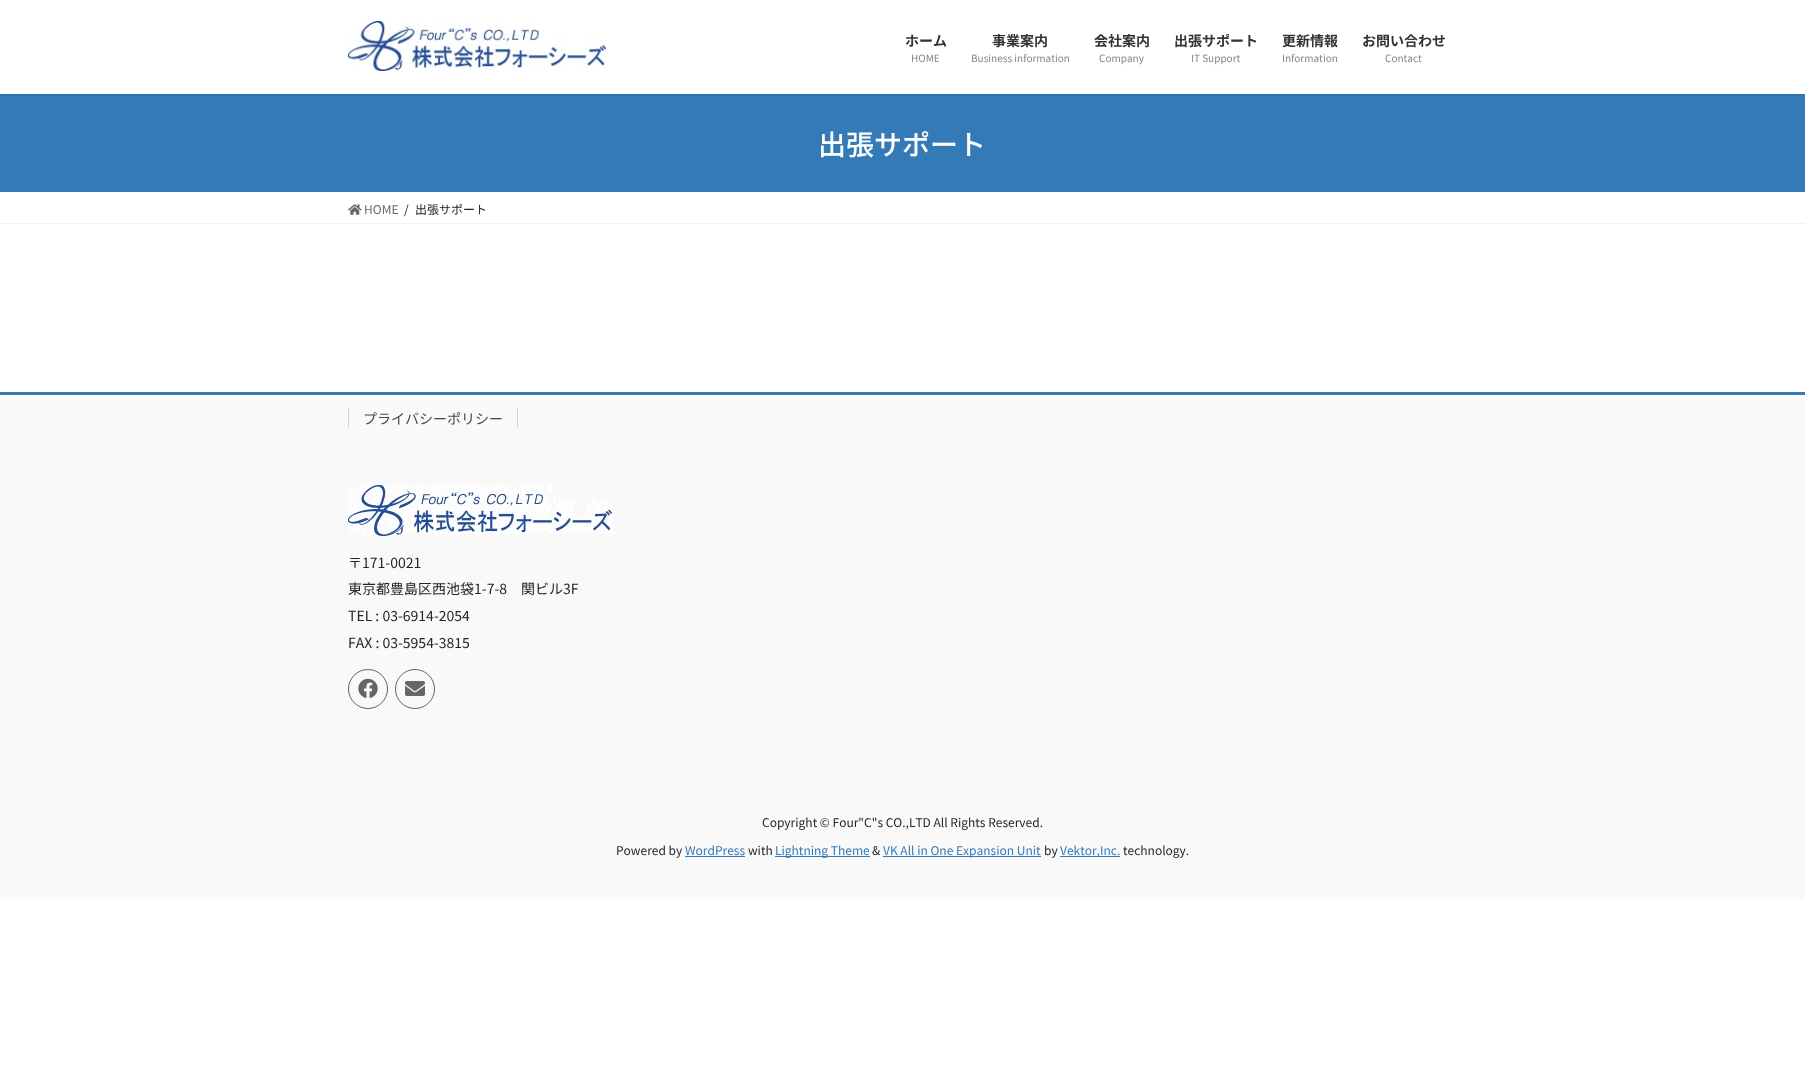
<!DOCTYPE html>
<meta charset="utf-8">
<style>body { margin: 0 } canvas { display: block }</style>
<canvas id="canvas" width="1805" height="1079"></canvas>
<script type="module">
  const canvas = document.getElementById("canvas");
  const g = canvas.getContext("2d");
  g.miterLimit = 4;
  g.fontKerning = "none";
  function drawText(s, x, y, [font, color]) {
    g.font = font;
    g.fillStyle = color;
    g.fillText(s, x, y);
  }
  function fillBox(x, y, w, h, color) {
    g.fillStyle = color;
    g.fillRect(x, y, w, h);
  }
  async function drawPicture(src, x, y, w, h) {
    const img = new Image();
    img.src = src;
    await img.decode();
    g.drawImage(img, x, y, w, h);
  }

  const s1 = ["bold 14px Noto Sans JP", "#333333"];
  const s2 = ["10px Noto Sans JP", "#858585"];
  const s3 = ["500 28px Noto Sans JP", "#FFFFFF"];
  const s4 = ["12px Noto Sans JP", "#666666"];
  const s5 = ["12px Noto Sans JP", "#212529"];
  const s6 = ["14px Noto Sans JP", "#464646"];
  const s7 = ["14px Noto Sans JP", "#212529"];
  const s8 = ["12px Noto Sans JP", "#337AB7"];

  fillBox(0, 0, 1805, 1079, "#FFFFFF");
  fillBox(0, 94, 1805, 98, "#337AB7");
  g.save();
  g.beginPath();
  g.rect(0, 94, 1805, 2);
  g.clip();
  g.fillStyle = "rgba(0, 0, 0, 0.1)";
  g.filter = "blur(1.5px)";
  g.beginPath();
  g.rect(0, 1, 1805, 94);
  g.fill();
  g.filter = "none";
  g.restore();
  await drawPicture("pic1.png", 348, 21, 259, 50);
  drawText("ホーム", 905, 46, s1);
  drawText("HOME", 911, 62, s2);
  drawText("事業案内", 992, 46, s1);
  drawText("Business information", 971, 62, s2);
  drawText("会社案内", 1094, 46, s1);
  drawText("Company", 1099, 62, s2);
  drawText("出張サポート", 1174, 46, s1);
  drawText("IT Support", 1191, 62, s2);
  drawText("更新情報", 1282, 46, s1);
  drawText("Information", 1282, 62, s2);
  drawText("お問い合わせ", 1362, 46, s1);
  drawText("Contact", 1385, 62, s2);
  drawText("出張サポート", 818, 155, s3);
  fillBox(0, 223, 1805, 1, "#F2F2F2");
  await drawPicture("pic2.png", 348, 204, 14, 11);
  drawText("HOME", 364, 214, s4);
  drawText("/", 404, 214, s5);
  drawText("出張サポート", 415, 214, s5);
  fillBox(0, 395, 1805, 504, "#F9F9F9");
  fillBox(0, 392, 1805, 3, "#337AB7");
  drawText("プライバシーポリシー", 363, 424, s6);
  fillBox(517, 408, 1, 20, "#D4D4D4");
  fillBox(348, 408, 1, 20, "#D4D4D4");
  await drawPicture("pic3.png", 348, 485, 265, 51);
  drawText("〒171-0021", 348, 568, s7);
  drawText("東京都豊島区西池袋1-7-8　関ビル3F", 348, 594, s7);
  drawText("TEL : 03-6914-2054", 348, 621, s7);
  drawText("FAX : 03-5954-3815", 348, 648, s7);
  g.beginPath();
  g.arc(368, 689, 19.5, 0, Math.PI * 2);
  g.strokeStyle = "#666666";
  g.stroke();
  await drawPicture("pic4.png", 358, 678, 20, 20);
  g.beginPath();
  g.arc(415, 689, 19.5, 0, Math.PI * 2);
  g.stroke();
  await drawPicture("pic5.png", 405, 681, 20, 15);
  drawText("Copyright © Four\"C\"s CO.,LTD All Rights Reserved.", 762, 827, s5);
  drawText("Powered by", 616, 855, s5);
  drawText("WordPress", 685, 855, s8);
  fillBox(685, 856, 60, 1, "#337AB7");
  drawText("with", 748, 855, s5);
  fillBox(775, 856, 95, 1, "#337AB7");
  drawText("Lightning Theme", 775, 855, s8);
  drawText("&", 872, 855, s5);
  fillBox(883, 856, 158, 1, "#337AB7");
  drawText("VK All in One Expansion Unit", 883, 855, s8);
  drawText("by", 1044, 855, s5);
  fillBox(1060, 856, 60, 1, "#337AB7");
  drawText("Vektor,Inc.", 1060, 855, s8);
  drawText("technology.", 1123, 855, s5);
</script>
